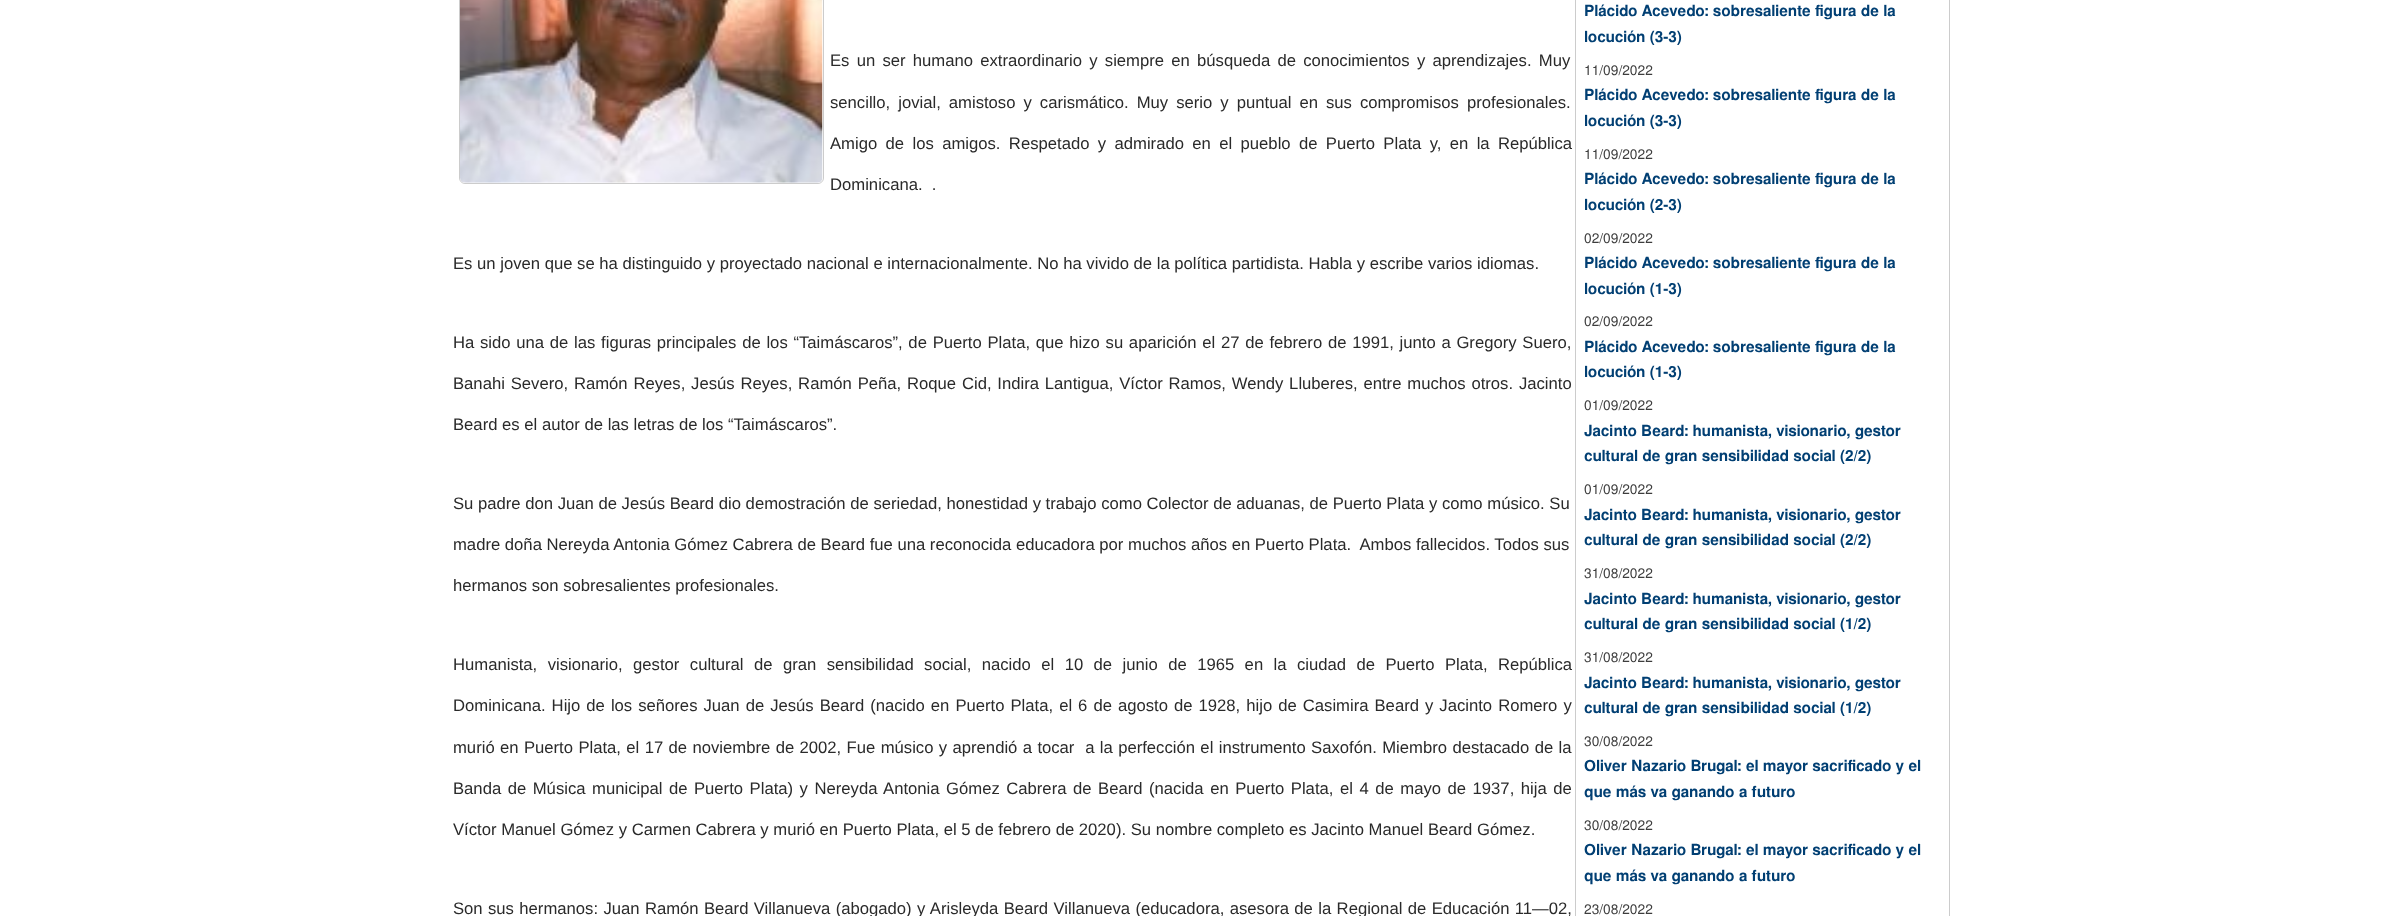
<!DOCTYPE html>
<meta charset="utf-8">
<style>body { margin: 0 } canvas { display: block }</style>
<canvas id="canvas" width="2405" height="916"></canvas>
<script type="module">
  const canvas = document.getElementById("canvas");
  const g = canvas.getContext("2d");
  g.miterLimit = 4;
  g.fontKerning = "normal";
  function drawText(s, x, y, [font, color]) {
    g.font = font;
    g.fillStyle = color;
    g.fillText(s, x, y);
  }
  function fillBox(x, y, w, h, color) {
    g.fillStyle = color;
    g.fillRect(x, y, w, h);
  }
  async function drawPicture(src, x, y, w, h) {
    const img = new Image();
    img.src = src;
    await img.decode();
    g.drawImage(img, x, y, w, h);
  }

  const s1 = ["16.67px Liberation Sans", "#2A2A2A"];
  const s2 = ["600 15.3px FreeSans", "#013F73"];
  const s3 = ["13.75px FreeSans", "#3D3D3D"];

  fillBox(0, 0, 2405, 916, "#FFFFFF");
  g.beginPath();
  g.roundRect(459.5, -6.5, 364, 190, 5.5);
  g.strokeStyle = "#CCCCCC";
  g.stroke();
  await drawPicture("pic1.png", 460, 0, 363, 183);
  g.wordSpacing = "2.6px";
  drawText("Es un ser humano extraordinario y siempre en búsqueda de conocimientos y aprendizajes. Muy", 830, 66, s1);
  g.wordSpacing = "3.4px";
  drawText("sencillo, jovial, amistoso y carismático. Muy serio y puntual en sus compromisos profesionales.", 830, 108, s1);
  g.wordSpacing = "3.75px";
  drawText("Amigo de los amigos. Respetado y admirado en el pueblo de Puerto Plata y, en la República", 830, 149, s1);
  g.wordSpacing = "0px";
  drawText("Dominicana.  .", 830, 190, s1);
  drawText("Es un joven que se ha distinguido y proyectado nacional e internacionalmente. No ha vivido de la política partidista. Habla y escribe varios idiomas.", 453, 269, s1);
  g.wordSpacing = "1.1px";
  drawText("Ha sido una de las figuras principales de los “Taimáscaros”, de Puerto Plata, que hizo su aparición el 27 de febrero de 1991, junto a Gregory Suero,", 453, 348, s1);
  g.wordSpacing = "1.2px";
  drawText("Banahi Severo, Ramón Reyes, Jesús Reyes, Ramón Peña, Roque Cid, Indira Lantigua, Víctor Ramos, Wendy Lluberes, entre muchos otros. Jacinto", 453, 389, s1);
  g.wordSpacing = "0px";
  drawText("Beard es el autor de las letras de los “Taimáscaros”.", 453, 430, s1);
  drawText("Su padre don Juan de Jesús Beard dio demostración de seriedad, honestidad y trabajo como Colector de aduanas, de Puerto Plata y como músico. Su", 453, 509, s1);
  drawText("madre doña Nereyda Antonia Gómez Cabrera de Beard fue una reconocida educadora por muchos años en Puerto Plata.  Ambos fallecidos. Todos sus", 453, 550, s1);
  drawText("hermanos son sobresalientes profesionales.", 453, 591, s1);
  g.wordSpacing = "5.8px";
  drawText("Humanista, visionario, gestor cultural de gran sensibilidad social, nacido el 10 de junio de 1965 en la ciudad de Puerto Plata, República", 453, 670, s1);
  g.wordSpacing = "1.4px";
  drawText("Dominicana. Hijo de los señores Juan de Jesús Beard (nacido en Puerto Plata, el 6 de agosto de 1928, hijo de Casimira Beard y Jacinto Romero y", 453, 711, s1);
  g.wordSpacing = "0.75px";
  drawText("murió en Puerto Plata, el 17 de noviembre de 2002, Fue músico y aprendió a tocar  a la perfección el instrumento Saxofón. Miembro destacado de la", 453, 753, s1);
  g.wordSpacing = "1.9px";
  drawText("Banda de Música municipal de Puerto Plata) y Nereyda Antonia Gómez Cabrera de Beard (nacida en Puerto Plata, el 4 de mayo de 1937, hija de", 453, 794, s1);
  g.wordSpacing = "0px";
  drawText("Víctor Manuel Gómez y Carmen Cabrera y murió en Puerto Plata, el 5 de febrero de 2020). Su nombre completo es Jacinto Manuel Beard Gómez.", 453, 835, s1);
  g.wordSpacing = "0.75px";
  drawText("Son sus hermanos: Juan Ramón Beard Villanueva (abogado) y Arisleyda Beard Villanueva (educadora, asesora de la Regional de Educación 11—02,", 453, 914, s1);
  g.strokeRect(1575.5, -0.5, 374, 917);
  g.wordSpacing = "0px";
  drawText("Plácido Acevedo: sobresaliente figura de la", 1584, 16, s2);
  drawText("locución (3-3)", 1584, 42, s2);
  drawText("11/09/2022", 1584, 75, s3);
  drawText("Plácido Acevedo: sobresaliente figura de la", 1584, 100, s2);
  drawText("locución (3-3)", 1584, 126, s2);
  drawText("11/09/2022", 1584, 159, s3);
  drawText("Plácido Acevedo: sobresaliente figura de la", 1584, 184, s2);
  drawText("locución (2-3)", 1584, 210, s2);
  drawText("02/09/2022", 1584, 243, s3);
  drawText("Plácido Acevedo: sobresaliente figura de la", 1584, 268, s2);
  drawText("locución (1-3)", 1584, 294, s2);
  drawText("02/09/2022", 1584, 326, s3);
  drawText("Plácido Acevedo: sobresaliente figura de la", 1584, 352, s2);
  drawText("locución (1-3)", 1584, 377, s2);
  drawText("01/09/2022", 1584, 410, s3);
  drawText("Jacinto Beard: humanista, visionario, gestor", 1584, 436, s2);
  drawText("cultural de gran sensibilidad social (2/2)", 1584, 461, s2);
  drawText("01/09/2022", 1584, 494, s3);
  drawText("Jacinto Beard: humanista, visionario, gestor", 1584, 520, s2);
  drawText("cultural de gran sensibilidad social (2/2)", 1584, 545, s2);
  drawText("31/08/2022", 1584, 578, s3);
  drawText("Jacinto Beard: humanista, visionario, gestor", 1584, 604, s2);
  drawText("cultural de gran sensibilidad social (1/2)", 1584, 629, s2);
  drawText("31/08/2022", 1584, 662, s3);
  drawText("Jacinto Beard: humanista, visionario, gestor", 1584, 688, s2);
  drawText("cultural de gran sensibilidad social (1/2)", 1584, 713, s2);
  drawText("30/08/2022", 1584, 746, s3);
  drawText("Oliver Nazario Brugal: el mayor sacrificado y el", 1584, 771, s2);
  drawText("que más va ganando a futuro", 1584, 797, s2);
  drawText("30/08/2022", 1584, 830, s3);
  drawText("Oliver Nazario Brugal: el mayor sacrificado y el", 1584, 855, s2);
  drawText("que más va ganando a futuro", 1584, 881, s2);
  drawText("23/08/2022", 1584, 914, s3);
</script>
